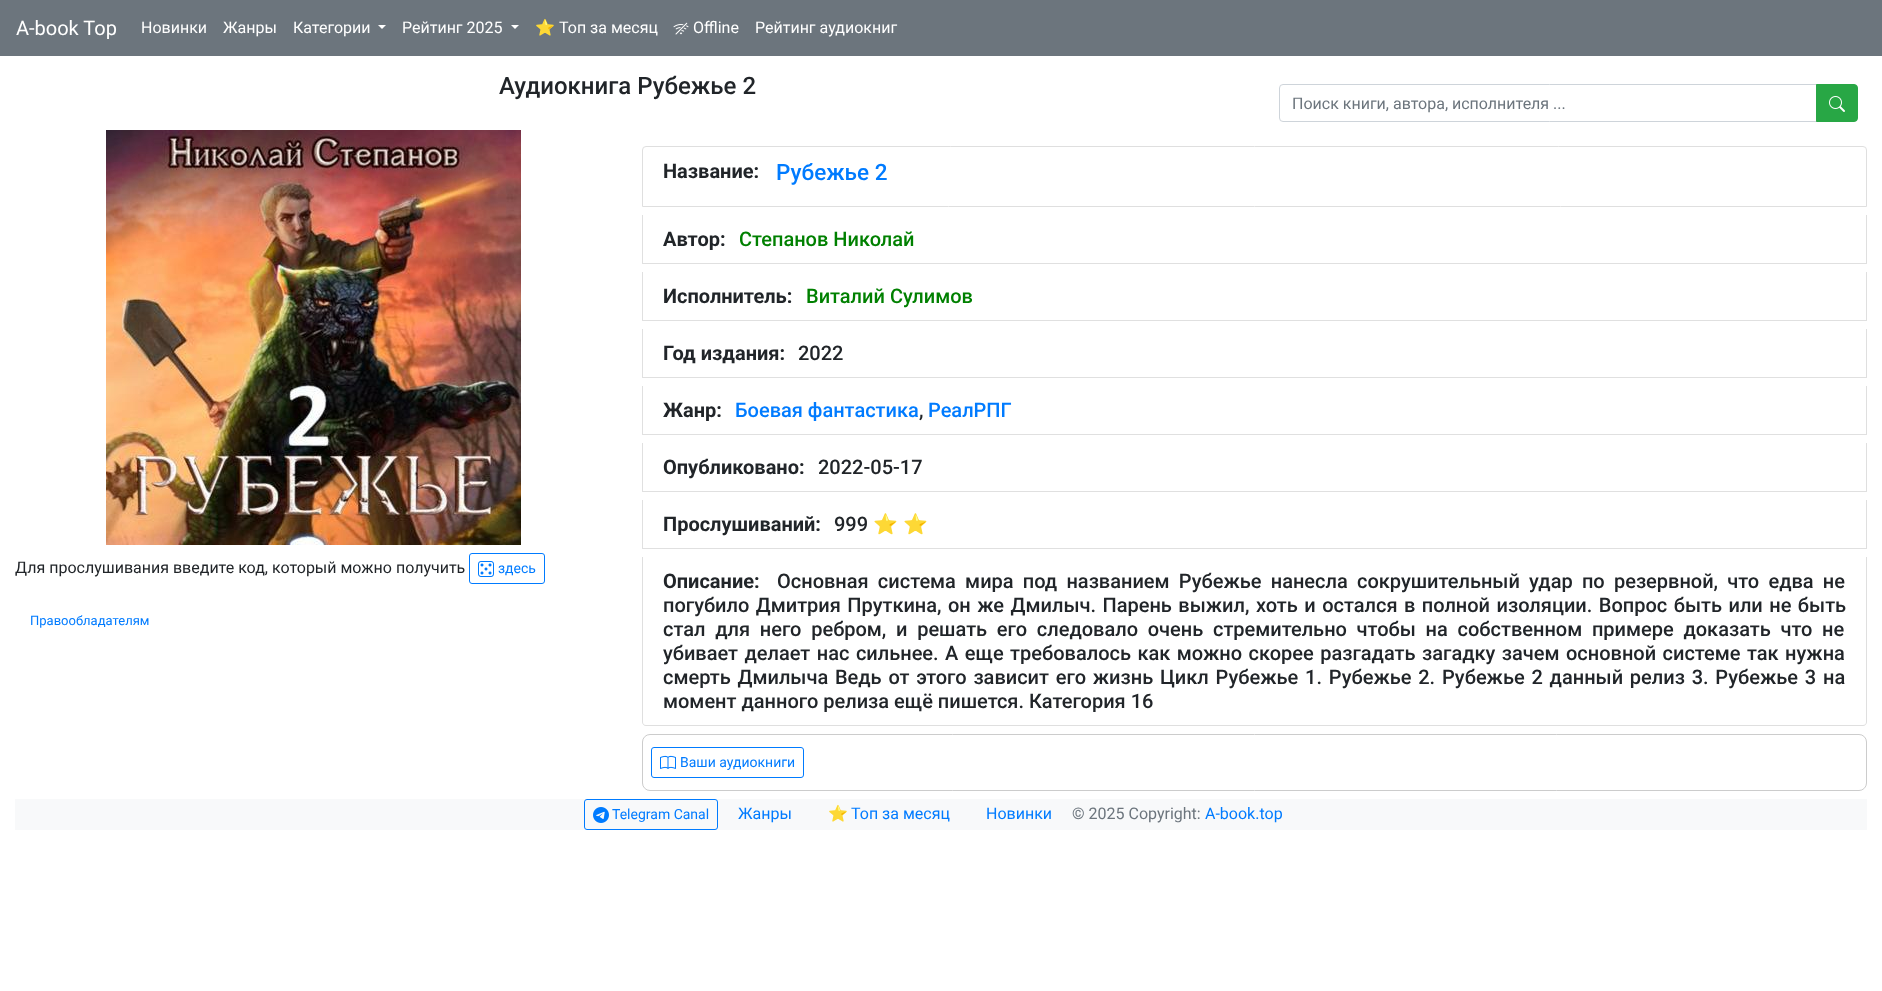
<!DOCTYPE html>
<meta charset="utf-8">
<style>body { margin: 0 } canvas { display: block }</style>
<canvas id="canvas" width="1882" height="991"></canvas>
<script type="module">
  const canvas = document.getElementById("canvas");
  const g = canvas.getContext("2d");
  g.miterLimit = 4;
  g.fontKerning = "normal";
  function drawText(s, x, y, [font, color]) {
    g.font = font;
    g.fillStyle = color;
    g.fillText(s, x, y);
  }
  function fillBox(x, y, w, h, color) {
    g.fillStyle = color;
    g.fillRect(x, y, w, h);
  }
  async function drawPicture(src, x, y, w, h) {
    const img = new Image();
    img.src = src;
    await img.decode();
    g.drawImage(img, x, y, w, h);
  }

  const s1 = ["20px Roboto", "#FFFFFF"];
  const s2 = ["16px Roboto", "#FFFFFF"];
  const s3 = ["16px Noto Color Emoji", "#FFFFFF"];
  const s4 = ["500 24px Roboto", "#212529"];
  const s5 = ["16px Roboto", "#6C757D"];
  const s6 = ["16px Roboto", "#212529"];
  const s7 = ["14px Roboto", "#007BFF"];
  const s8 = ["13px Roboto", "#007BFF"];
  const s9 = ["bold 20px Roboto", "#212529"];
  const s10 = ["500 22.5px Roboto", "#007BFF"];
  const s11 = ["500 20px Roboto", "#008000"];
  const s12 = ["500 20px Roboto", "#212529"];
  const s13 = ["500 20px Roboto", "#007BFF"];
  const s14 = ["20px Noto Color Emoji", "#212529"];
  const s15 = ["16px Roboto", "#007BFF"];
  const s16 = ["16px Noto Color Emoji", "#007BFF"];

  fillBox(0, 0, 1882, 991, "#FFFFFF");
  fillBox(0, 0, 1882, 56, "#6C757D");
  drawText("A-book Top", 16, 35, s1);
  drawText("Новинки", 141, 33, s2);
  drawText("Жанры", 223, 33, s2);
  drawText("Категории", 293, 33, s2);
  g.beginPath();
  g.moveTo(378, 25);
  g.lineTo(386, 25);
  g.lineTo(382, 29);
  g.closePath();
  g.fill();
  drawText("Рейтинг 2025", 402, 33, s2);
  g.beginPath();
  g.moveTo(511, 25);
  g.lineTo(519, 25);
  g.lineTo(515, 29);
  g.closePath();
  g.fill();
  drawText("⭐", 535, 33, s3);
  drawText("Топ за месяц", 559, 33, s2);
  await drawPicture("pic1.png", 673, 22, 16, 13);
  drawText("Offline", 693, 33, s2);
  drawText("Рейтинг аудиокниг", 755, 33, s2);
  drawText("Аудиокнига Рубежье 2", 499, 94, s4);
  g.beginPath();
  g.roundRect(1279.5, 84.5, 537, 37, [3.5, 0, 0, 3.5]);
  g.strokeStyle = "#CED4DA";
  g.stroke();
  drawText("Поиск книги, автора, исполнителя ...", 1292, 109, s5);
  g.fillStyle = "#28A745";
  g.beginPath();
  g.roundRect(1816.5, 84.5, 41, 37, [0, 3.5, 3.5, 0]);
  g.fill();
  g.strokeStyle = "#28A745";
  g.stroke();
  await drawPicture("pic2.png", 1829, 96, 16, 16);
  await drawPicture("pic3.png", 106, 130, 415, 415);
  drawText("Для прослушивания введите код, который можно получить", 15, 573, s6);
  g.beginPath();
  g.roundRect(469.5, 553.5, 75, 30, 2.5);
  g.strokeStyle = "#007BFF";
  g.stroke();
  await drawPicture("pic4.png", 478, 561, 16, 16);
  drawText("здесь", 498, 573, s7);
  drawText("Правообладателям", 30, 625, s8);
  g.beginPath();
  g.roundRect(642.5, 146.5, 1224, 60, [3.5, 3.5, 0, 0]);
  g.strokeStyle = "#DFDFDF";
  g.stroke();
  drawText("Название:", 663, 178, s9);
  drawText("Рубежье 2", 776, 180, s10);
  g.fillStyle = "#DFDFDF";
  g.beginPath();
  g.moveTo(1867, 215);
  g.lineTo(1867, 264);
  g.lineTo(1866, 263);
  g.lineTo(1866, 215);
  g.closePath();
  g.fill();
  g.fillStyle = "rgba(0, 0, 0, 0.12)";
  g.beginPath();
  g.moveTo(1867, 264);
  g.lineTo(642, 264);
  g.lineTo(643, 263);
  g.lineTo(1866, 263);
  g.closePath();
  g.fill();
  g.beginPath();
  g.moveTo(642, 264);
  g.lineTo(642, 215);
  g.lineTo(643, 215);
  g.lineTo(643, 263);
  g.closePath();
  g.fill();
  drawText("Автор:", 663, 246, s9);
  drawText("Степанов Николай", 739, 246, s11);
  g.fillStyle = "#DFDFDF";
  g.beginPath();
  g.moveTo(1867, 272);
  g.lineTo(1867, 321);
  g.lineTo(1866, 320);
  g.lineTo(1866, 272);
  g.closePath();
  g.fill();
  g.fillStyle = "rgba(0, 0, 0, 0.12)";
  g.beginPath();
  g.moveTo(1867, 321);
  g.lineTo(642, 321);
  g.lineTo(643, 320);
  g.lineTo(1866, 320);
  g.closePath();
  g.fill();
  g.beginPath();
  g.moveTo(642, 321);
  g.lineTo(642, 272);
  g.lineTo(643, 272);
  g.lineTo(643, 320);
  g.closePath();
  g.fill();
  drawText("Исполнитель:", 663, 303, s9);
  drawText("Виталий Сулимов", 806, 303, s11);
  g.fillStyle = "#DFDFDF";
  g.beginPath();
  g.moveTo(1867, 329);
  g.lineTo(1867, 378);
  g.lineTo(1866, 377);
  g.lineTo(1866, 329);
  g.closePath();
  g.fill();
  g.fillStyle = "rgba(0, 0, 0, 0.12)";
  g.beginPath();
  g.moveTo(1867, 378);
  g.lineTo(642, 378);
  g.lineTo(643, 377);
  g.lineTo(1866, 377);
  g.closePath();
  g.fill();
  g.beginPath();
  g.moveTo(642, 378);
  g.lineTo(642, 329);
  g.lineTo(643, 329);
  g.lineTo(643, 377);
  g.closePath();
  g.fill();
  drawText("Год издания:", 663, 360, s9);
  drawText("2022", 798, 360, s12);
  g.fillStyle = "#DFDFDF";
  g.beginPath();
  g.moveTo(1867, 386);
  g.lineTo(1867, 435);
  g.lineTo(1866, 434);
  g.lineTo(1866, 386);
  g.closePath();
  g.fill();
  g.fillStyle = "rgba(0, 0, 0, 0.12)";
  g.beginPath();
  g.moveTo(1867, 435);
  g.lineTo(642, 435);
  g.lineTo(643, 434);
  g.lineTo(1866, 434);
  g.closePath();
  g.fill();
  g.beginPath();
  g.moveTo(642, 435);
  g.lineTo(642, 386);
  g.lineTo(643, 386);
  g.lineTo(643, 434);
  g.closePath();
  g.fill();
  drawText("Жанр:", 663, 417, s9);
  drawText("Боевая фантастика", 735, 417, s13);
  drawText(",", 919, 417, s12);
  drawText("РеалРПГ", 928, 417, s13);
  g.fillStyle = "#DFDFDF";
  g.beginPath();
  g.moveTo(1867, 443);
  g.lineTo(1867, 492);
  g.lineTo(1866, 491);
  g.lineTo(1866, 443);
  g.closePath();
  g.fill();
  g.fillStyle = "rgba(0, 0, 0, 0.12)";
  g.beginPath();
  g.moveTo(1867, 492);
  g.lineTo(642, 492);
  g.lineTo(643, 491);
  g.lineTo(1866, 491);
  g.closePath();
  g.fill();
  g.beginPath();
  g.moveTo(642, 492);
  g.lineTo(642, 443);
  g.lineTo(643, 443);
  g.lineTo(643, 491);
  g.closePath();
  g.fill();
  drawText("Опубликовано:", 663, 474, s9);
  drawText("2022-05-17", 818, 474, s12);
  g.fillStyle = "#DFDFDF";
  g.beginPath();
  g.moveTo(1867, 500);
  g.lineTo(1867, 549);
  g.lineTo(1866, 548);
  g.lineTo(1866, 500);
  g.closePath();
  g.fill();
  g.fillStyle = "rgba(0, 0, 0, 0.12)";
  g.beginPath();
  g.moveTo(1867, 549);
  g.lineTo(642, 549);
  g.lineTo(643, 548);
  g.lineTo(1866, 548);
  g.closePath();
  g.fill();
  g.beginPath();
  g.moveTo(642, 549);
  g.lineTo(642, 500);
  g.lineTo(643, 500);
  g.lineTo(643, 548);
  g.closePath();
  g.fill();
  drawText("Прослушиваний:", 663, 531, s9);
  drawText("999", 834, 531, s12);
  drawText("⭐", 873, 531, s14);
  drawText("⭐", 903, 531, s14);
  g.fillStyle = "#DFDFDF";
  g.beginPath();
  g.moveTo(642, 557);
  g.lineTo(1867, 557);
  g.lineTo(1867, 722);
  g.bezierCurveTo(1867, 724, 1865, 726, 1863, 726);
  g.lineTo(646, 726);
  g.bezierCurveTo(644, 726, 642, 724, 642, 722);
  g.closePath();
  g.moveTo(643, 557);
  g.lineTo(1866, 557);
  g.lineTo(1866, 722);
  g.bezierCurveTo(1866, 724, 1865, 725, 1863, 725);
  g.lineTo(646, 725);
  g.bezierCurveTo(644, 725, 643, 724, 643, 722);
  g.closePath();
  g.fill("evenodd");
  drawText("Описание:", 663, 588, s9);
  g.wordSpacing = "4.25px";
  drawText("Основная система мира под названием Рубежье нанесла сокрушительный удар по резервной, что едва не", 777, 588, s12);
  g.wordSpacing = "1.5px";
  drawText("погубило Дмитрия Пруткина, он же Дмилыч. Парень выжил, хоть и остался в полной изоляции. Вопрос быть или не быть", 663, 612, s12);
  g.wordSpacing = "4.75px";
  drawText("стал для него ребром, и решать его следовало очень стремительно чтобы на собственном примере доказать что не", 663, 636, s12);
  g.wordSpacing = "1.5px";
  drawText("убивает делает нас сильнее. А еще требовалось как можно скорее разгадать загадку зачем основной системе так нужна", 663, 660, s12);
  g.wordSpacing = "1.8px";
  drawText("смерть Дмилыча Ведь от этого зависит его жизнь Цикл Рубежье 1. Рубежье 2. Рубежье 2 данный релиз 3. Рубежье 3 на", 663, 684, s12);
  g.wordSpacing = "0px";
  drawText("момент данного релиза ещё пишется. Категория 16", 663, 708, s12);
  g.beginPath();
  g.roundRect(642.5, 734.5, 1224, 56, 7.5);
  g.strokeStyle = "#CCCCCC";
  g.stroke();
  g.beginPath();
  g.roundRect(651.5, 747.5, 152, 30, 2.5);
  g.strokeStyle = "#007BFF";
  g.stroke();
  await drawPicture("pic5.png", 660, 755, 16, 14);
  drawText("Ваши аудиокниги", 680, 767, s7);
  fillBox(15, 799, 1852, 31, "#F8F9FA");
  g.beginPath();
  g.roundRect(584.5, 799.5, 133, 30, 2.5);
  g.stroke();
  await drawPicture("pic6.png", 593, 807, 16, 16);
  drawText("Telegram Canal", 612, 819, s7);
  drawText("Жанры", 738, 819, s15);
  drawText("⭐", 828, 819, s16);
  drawText("Топ за месяц", 851, 819, s15);
  drawText("Новинки", 986, 819, s15);
  drawText("© 2025 Copyright:", 1072, 819, s5);
  drawText("A-book.top", 1205, 819, s15);
</script>
